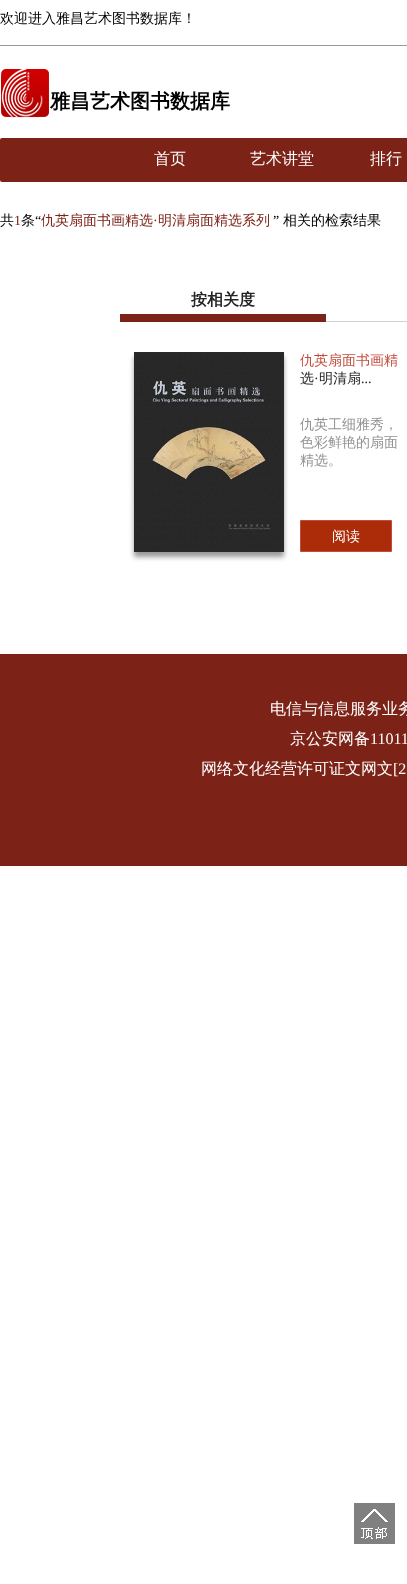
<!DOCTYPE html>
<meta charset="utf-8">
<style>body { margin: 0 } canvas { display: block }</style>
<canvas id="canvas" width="407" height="1584"></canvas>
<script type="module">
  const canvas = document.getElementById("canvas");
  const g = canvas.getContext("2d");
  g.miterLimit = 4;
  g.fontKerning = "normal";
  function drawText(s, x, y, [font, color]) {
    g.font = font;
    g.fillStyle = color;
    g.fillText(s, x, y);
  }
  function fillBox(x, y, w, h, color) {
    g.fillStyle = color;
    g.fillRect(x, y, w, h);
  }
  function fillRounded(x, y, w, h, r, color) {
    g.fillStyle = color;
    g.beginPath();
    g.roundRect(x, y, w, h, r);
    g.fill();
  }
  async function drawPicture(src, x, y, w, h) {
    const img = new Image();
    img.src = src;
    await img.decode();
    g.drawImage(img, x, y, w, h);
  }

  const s1 = ["500 14px WenQuanYi Zen Hei", "#000000"];
  const s2 = ["bold 20px WenQuanYi Zen Hei", "#000000"];
  const s3 = ["500 16px WenQuanYi Zen Hei", "#FFFFFF"];
  const s4 = ["14px Liberation Serif", "#7C2216"];
  const s5 = ["14px Liberation Serif", "#000000"];
  const s6 = ["500 14px WenQuanYi Zen Hei", "#7C2216"];
  const s7 = ["bold 16px WenQuanYi Zen Hei", "#242424"];
  const s8 = ["500 14px WenQuanYi Zen Hei", "#C34D3C"];
  const s9 = ["500 14px WenQuanYi Zen Hei", "#242424"];
  const s10 = ["14px Liberation Serif", "#242424"];
  const s11 = ["500 14px WenQuanYi Zen Hei", "#929292"];
  const s12 = ["500 14px WenQuanYi Zen Hei", "#FFFFFF"];
  const s13 = ["16px Liberation Serif", "#FFFFFF"];

  fillBox(0, 0, 407, 1584, "#FFFFFF");
  fillBox(0, 45, 407, 1, "#999999");
  drawText("欢迎进入雅昌艺术图书数据库！", 0, 23, s1);
  await drawPicture("pic1.png", 1, 69, 48, 49);
  drawText("雅昌艺术图书数据库", 50, 108, s2);
  fillRounded(0, 138, 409, 44, 2, "#7C2217");
  drawText("首页", 154, 164, s3);
  drawText("艺术讲堂", 250, 164, s3);
  drawText("排行", 370, 164, s3);
  drawText("共", 0, 225, s1);
  drawText("1", 14, 225, s4);
  drawText("条", 21, 225, s1);
  drawText("“", 35, 225, s5);
  drawText("仇英扇面书画精选", 41, 225, s6);
  drawText("明清扇面精选系列", 158, 225, s6);
  drawText("”", 273, 225, s5);
  drawText("相关的检索结果", 283, 225, s1);
  drawText("·", 153, 225, s4);
  fillBox(326, 321, 81, 1, "#D1D1D1");
  fillBox(120, 314, 206, 8, "#7C2216");
  drawText("按相关度", 191, 305, s7);
  g.fillStyle = "#999999";
  g.filter = "blur(2.5px)";
  g.beginPath();
  g.rect(134, 357, 150, 200);
  g.fill();
  g.filter = "none";
  await drawPicture("pic2.png", 134, 352, 150, 200);
  drawText("仇英扇面书画精", 300, 365, s8);
  drawText("选", 300, 383, s9);
  drawText("·", 314, 383, s10);
  drawText("明清扇", 319, 383, s9);
  drawText("...", 361, 383, s10);
  drawText("仇英工细雅秀，", 300, 429, s11);
  drawText("色彩鲜艳的扇面", 300, 447, s11);
  drawText("精选。", 300, 465, s11);
  g.fillStyle = "#AC2B09";
  g.beginPath();
  g.rect(300.5, 520.5, 91, 31);
  g.fill();
  g.strokeStyle = "#C34D3C";
  g.stroke();
  drawText("阅读", 332, 541, s12);
  await drawPicture("pic3.png", 354, 1503, 41, 41);
  fillBox(0, 654, 407, 212, "#7C2216");
  drawText("电信与信息服务业务", 270, 714, s3);
  drawText("京公安网备", 290, 744, s3);
  drawText("11011", 370, 744, s13);
  drawText("网络文化经营许可证文网文", 201, 774, s3);
  drawText("[2", 393, 774, s13);
</script>
